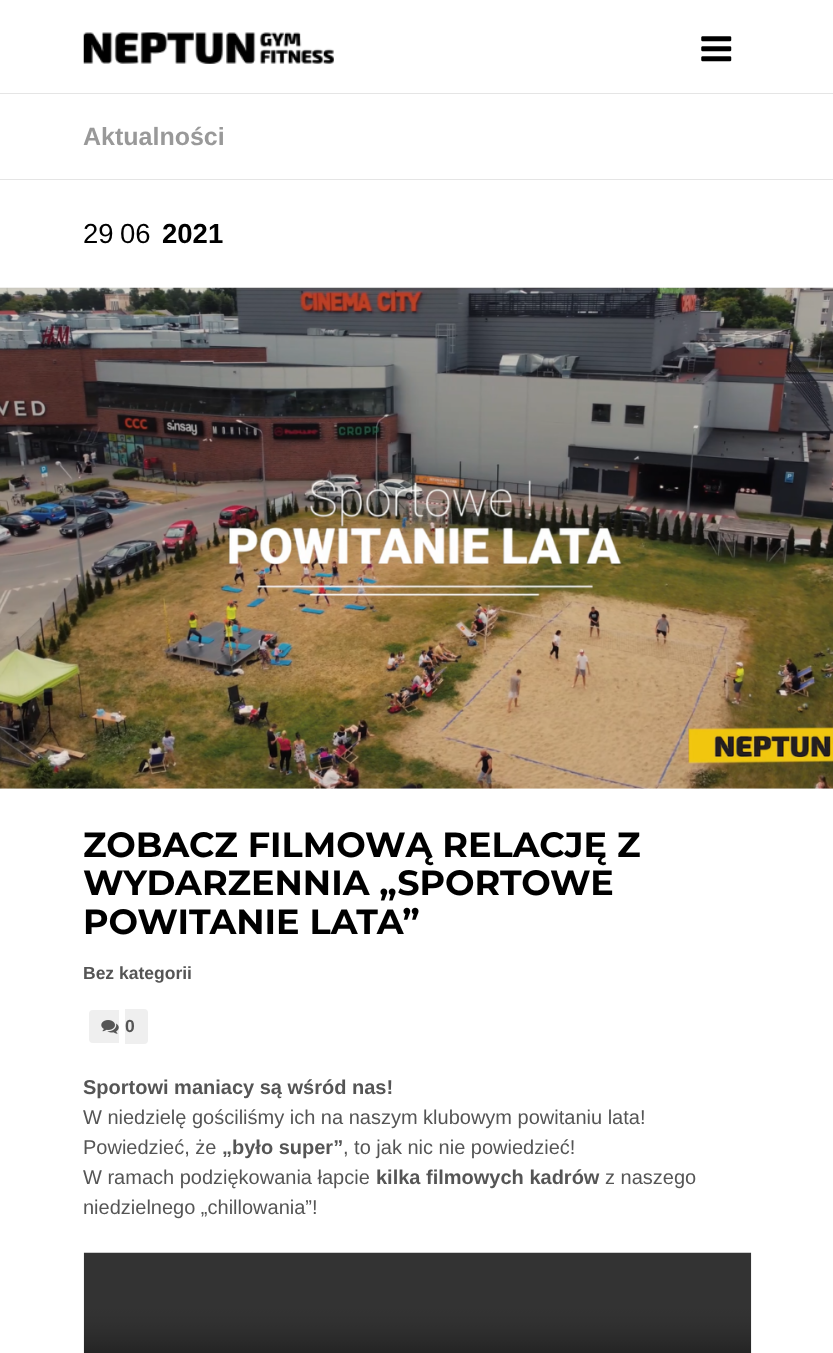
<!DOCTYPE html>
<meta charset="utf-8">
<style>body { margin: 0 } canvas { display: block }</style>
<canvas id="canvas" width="833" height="1353"></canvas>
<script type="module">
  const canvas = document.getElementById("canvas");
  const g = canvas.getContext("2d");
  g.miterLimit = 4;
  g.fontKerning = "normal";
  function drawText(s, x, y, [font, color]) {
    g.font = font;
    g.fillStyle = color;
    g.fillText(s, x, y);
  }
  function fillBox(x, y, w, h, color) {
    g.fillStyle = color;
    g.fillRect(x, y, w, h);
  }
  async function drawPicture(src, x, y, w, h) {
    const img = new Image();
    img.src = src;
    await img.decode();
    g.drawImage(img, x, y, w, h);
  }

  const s1 = ["bold 25px Liberation Sans", "#999999"];
  const s2 = ["27.5px Liberation Sans", "#000000"];
  const s3 = ["bold 27.5px Liberation Sans", "#000000"];
  const s4 = ["bold 35px Montserrat", "#000000"];
  const s5 = ["bold 17.5px Liberation Sans", "#555555"];
  const s6 = ["bold 20px Liberation Sans", "#555555"];
  const s7 = ["20px Liberation Sans", "#555555"];

  fillBox(0, 0, 833, 1353, "#FFFFFF");
  fillBox(0, 93, 833, 1, "#E5E5E5");
  await drawPicture("pic1.png", 83, 32, 251, 32);
  await drawPicture("pic2.png", 701, 36, 31, 26);
  fillBox(0, 179, 833, 1, "#E5E5E5");
  drawText("Aktualności", 83, 145, s1);
  drawText("29", 83, 243, s2);
  drawText("06", 120, 243, s2);
  drawText("2021", 162, 243, s3);
  await drawPicture("pic3.png", 0, 287, 833, 502);
  drawText("ZOBACZ FILMOWĄ RELACJĘ Z", 83, 857, s4);
  drawText("WYDARZENNIA „SPORTOWE", 83, 895, s4);
  drawText("POWITANIE LATA”", 83, 934, s4);
  drawText("Bez kategorii", 83, 979, s5);
  g.fillStyle = "#EFEFEF";
  g.beginPath();
  g.roundRect(89, 1010, 30, 33, [4, 0, 0, 4]);
  g.fill();
  g.beginPath();
  g.roundRect(125, 1009, 23, 35, [0, 4, 4, 0]);
  g.fill();
  await drawPicture("pic4.png", 101, 1020, 18, 14);
  drawText("0", 125, 1032, s5);
  drawText("Sportowi maniacy są wśród nas!", 83, 1094, s6);
  drawText("W niedzielę gościliśmy ich na naszym klubowym powitaniu lata!", 83, 1124, s7);
  drawText("Powiedzieć, że", 83, 1154, s7);
  drawText("„było super”", 222, 1154, s6);
  drawText(", to jak nic nie powiedzieć!", 343, 1154, s7);
  drawText("W ramach podziękowania łapcie", 83, 1184, s7);
  drawText("kilka filmowych kadrów", 376, 1184, s6);
  drawText("z naszego", 605, 1184, s7);
  drawText("niedzielnego „chillowania”!", 83, 1214, s7);
  await drawPicture("pic5.png", 83, 1252, 669, 101);
</script>
